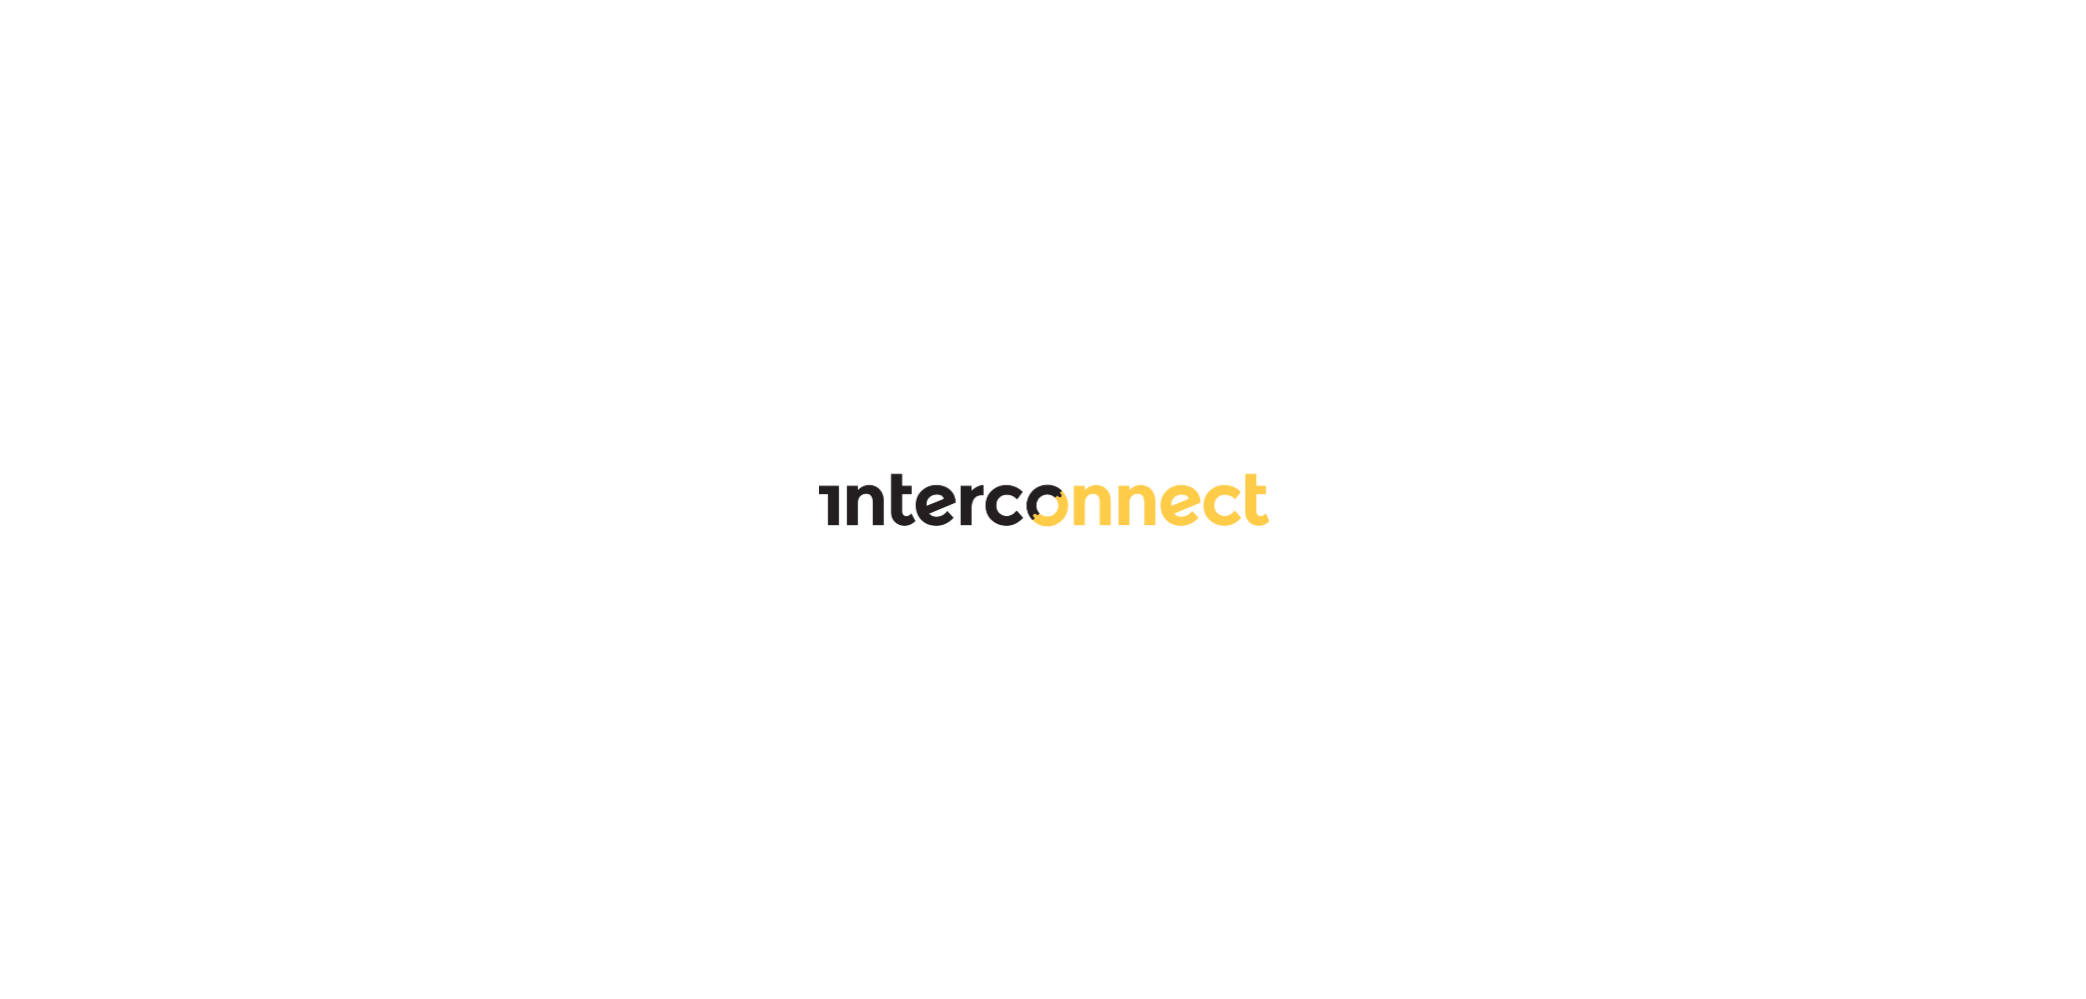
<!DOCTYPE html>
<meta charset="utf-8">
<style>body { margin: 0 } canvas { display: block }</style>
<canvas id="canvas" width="2086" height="999"></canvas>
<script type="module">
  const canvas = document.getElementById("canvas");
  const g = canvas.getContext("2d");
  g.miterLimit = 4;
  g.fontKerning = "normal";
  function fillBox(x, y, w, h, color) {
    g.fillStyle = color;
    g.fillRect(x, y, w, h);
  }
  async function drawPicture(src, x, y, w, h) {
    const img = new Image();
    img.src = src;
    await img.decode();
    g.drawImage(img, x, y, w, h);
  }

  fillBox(0, 0, 2086, 999, "#FFFFFF");
  await drawPicture("pic1.png", 819, 473, 450, 54);
</script>
